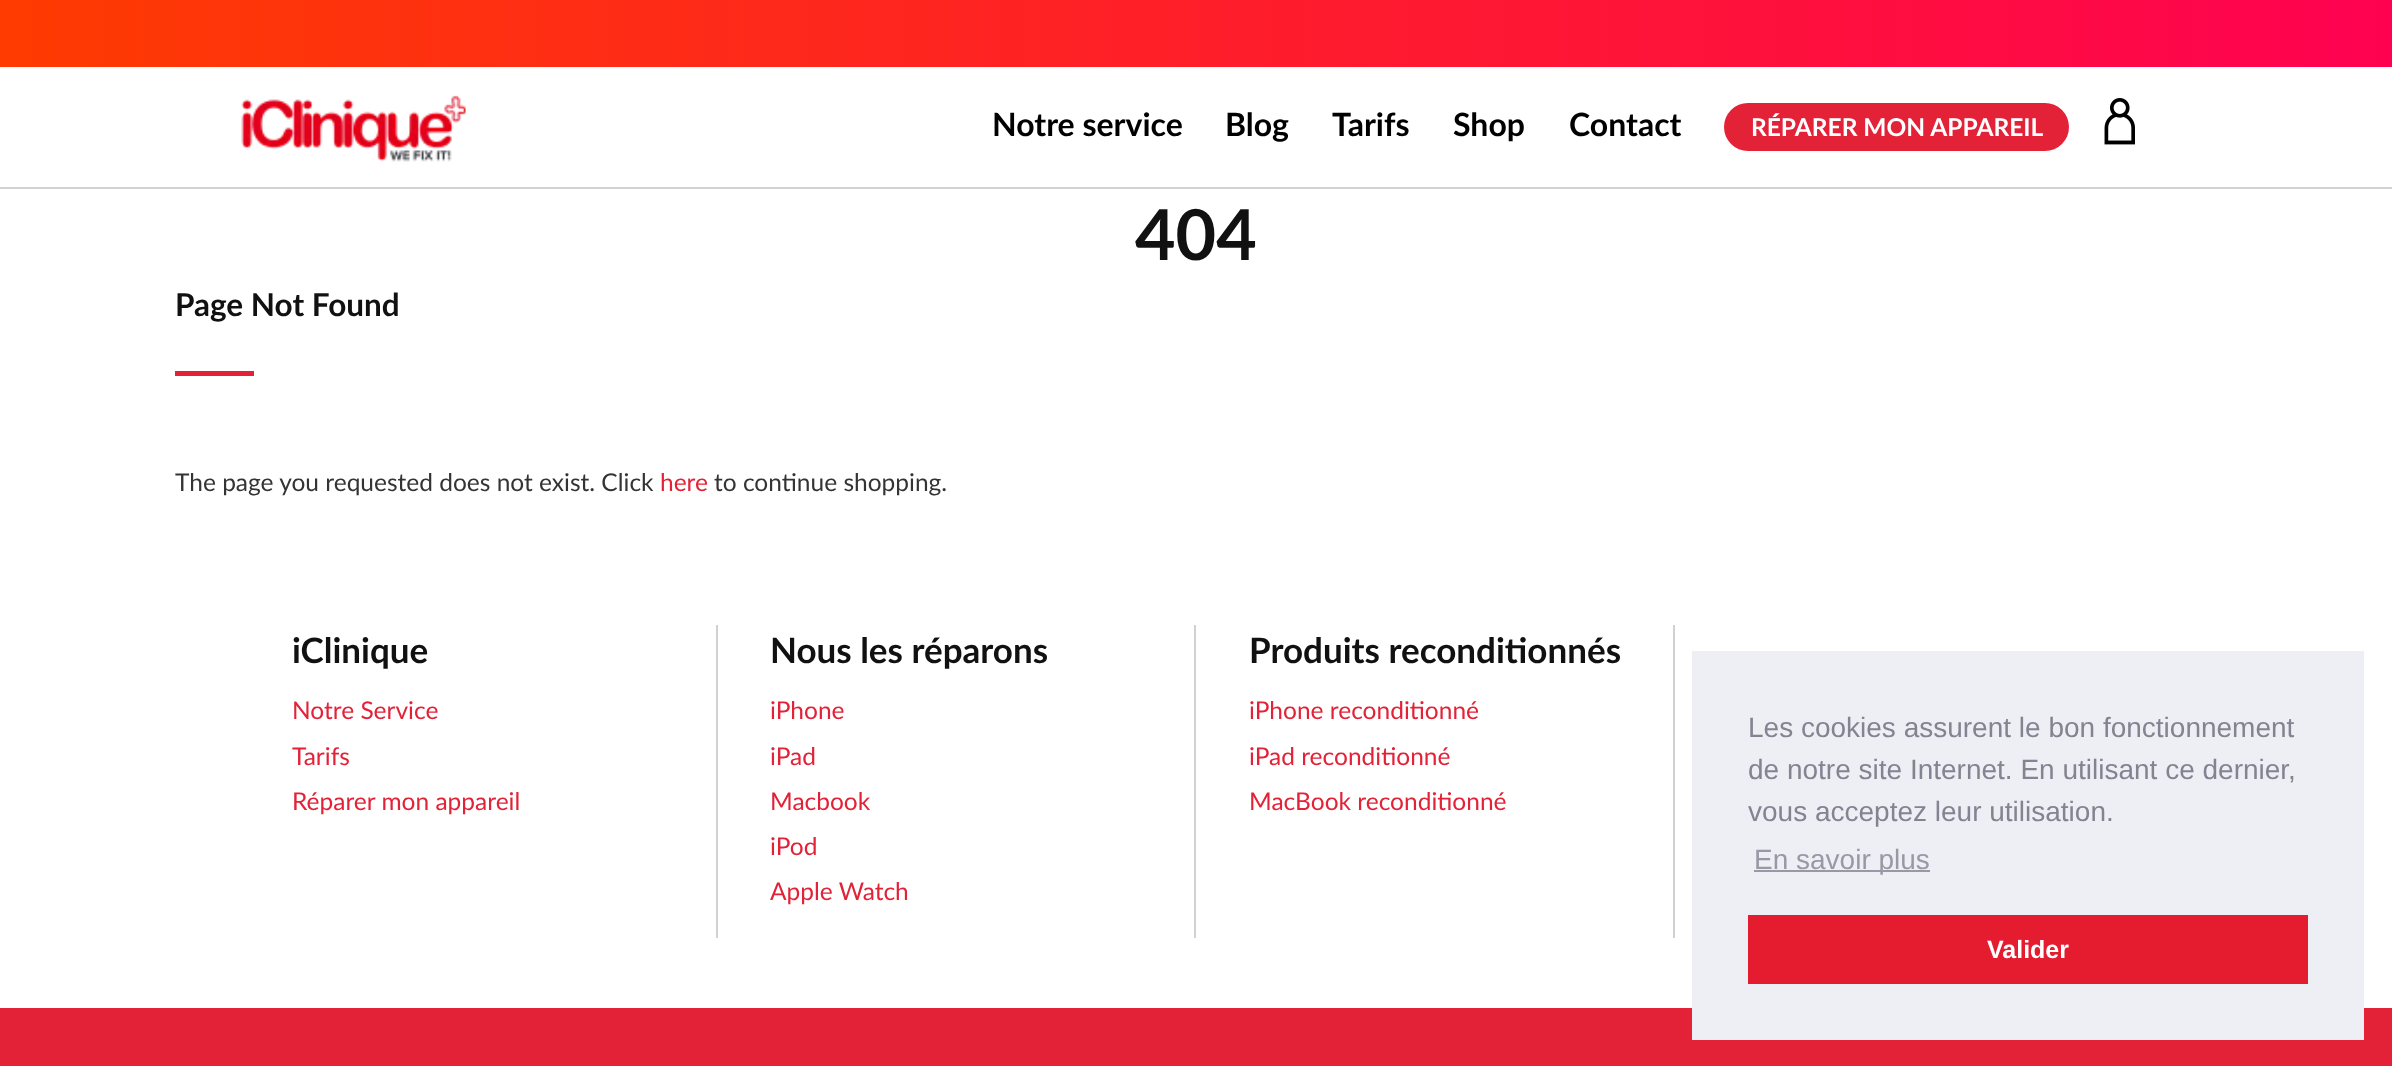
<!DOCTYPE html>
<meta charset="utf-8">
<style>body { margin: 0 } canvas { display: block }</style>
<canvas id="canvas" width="2392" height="1066"></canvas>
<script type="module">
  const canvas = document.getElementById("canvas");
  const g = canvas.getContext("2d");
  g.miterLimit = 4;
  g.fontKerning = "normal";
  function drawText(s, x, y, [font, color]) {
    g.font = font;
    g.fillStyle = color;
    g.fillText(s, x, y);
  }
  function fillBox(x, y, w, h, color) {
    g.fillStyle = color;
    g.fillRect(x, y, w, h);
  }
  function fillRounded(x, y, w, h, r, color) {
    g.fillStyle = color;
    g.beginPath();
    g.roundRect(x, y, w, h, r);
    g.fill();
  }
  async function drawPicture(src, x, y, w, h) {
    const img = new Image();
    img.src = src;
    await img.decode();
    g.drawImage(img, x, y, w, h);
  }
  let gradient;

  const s1 = ["bold 32px Lato", "#000000"];
  const s2 = ["bold 24.5px Lato", "#FFFFFF"];
  const s3 = ["bold 70px Lato", "#111111"];
  const s4 = ["bold 31.5px Lato", "#111111"];
  const s5 = ["24.5px Lato", "#343434"];
  const s6 = ["24.5px Lato", "#E32137"];
  const s7 = ["bold 35px Lato", "#111111"];
  const s8 = ["28px Liberation Sans", "#838391"];
  const s9 = ["28px Liberation Sans", "#9899A5"];
  const s10 = ["bold 25px Liberation Sans", "#FFFFFF"];

  fillBox(0, 0, 2392, 1066, "#FFFFFF");
  fillBox(0, 187, 2392, 2, "#D1D1D1");
  gradient = g.createLinearGradient(0, 33, 2392, 33);
  gradient.addColorStop(0, "#FE3B01");
  gradient.addColorStop(1, "#FE0251");
  g.fillStyle = gradient;
  g.fillRect(0, 0, 2392, 67);
  await drawPicture("pic1.png", 241, 95, 225, 67);
  drawText("Notre service", 992, 136, s1);
  drawText("Blog", 1225, 136, s1);
  drawText("Tarifs", 1332, 136, s1);
  drawText("Shop", 1453, 136, s1);
  drawText("Contact", 1569, 136, s1);
  fillRounded(1724, 103, 345, 48, 24, "#E32137");
  drawText("RÉPARER MON APPAREIL", 1751, 136, s2);
  await drawPicture("pic2.png", 2104, 98, 31, 47);
  drawText("404", 1135, 260, s3);
  drawText("Page Not Found", 175, 316, s4);
  fillBox(175, 371, 79, 5, "#E32137");
  drawText("The page you requested does not exist. Click", 175, 491, s5);
  drawText("here", 660, 491, s6);
  drawText("to continue shopping.", 714, 491, s5);
  fillBox(716, 625, 2, 313, "#D1D1D1");
  drawText("iClinique", 292, 663, s7);
  drawText("Notre Service", 292, 719, s6);
  drawText("Tarifs", 292, 765, s6);
  drawText("Réparer mon appareil", 292, 810, s6);
  fillBox(1194, 625, 2, 313, "#D1D1D1");
  drawText("Nous les réparons", 770, 663, s7);
  drawText("iPhone", 770, 719, s6);
  drawText("iPad", 770, 765, s6);
  drawText("Macbook", 770, 810, s6);
  drawText("iPod", 770, 855, s6);
  drawText("Apple Watch", 770, 900, s6);
  fillBox(1673, 625, 2, 313, "#D1D1D1");
  drawText("Produits reconditionnés", 1249, 663, s7);
  drawText("iPhone reconditionné", 1249, 719, s6);
  drawText("iPad reconditionné", 1249, 765, s6);
  drawText("MacBook reconditionné", 1249, 810, s6);
  fillBox(0, 1008, 2392, 58, "#E32137");
  fillBox(1692, 651, 672, 389, "#EDEFF5");
  drawText("Les cookies assurent le bon fonctionnement", 1748, 737, s8);
  drawText("de notre site Internet. En utilisant ce dernier,", 1748, 779, s8);
  drawText("vous acceptez leur utilisation.", 1748, 821, s8);
  fillBox(1754, 870, 176, 2, "#9899A5");
  drawText("En savoir plus", 1754, 869, s9);
  fillBox(1748, 915, 560, 69, "#E51B2F");
  drawText("Valider", 1987, 958, s10);
</script>
